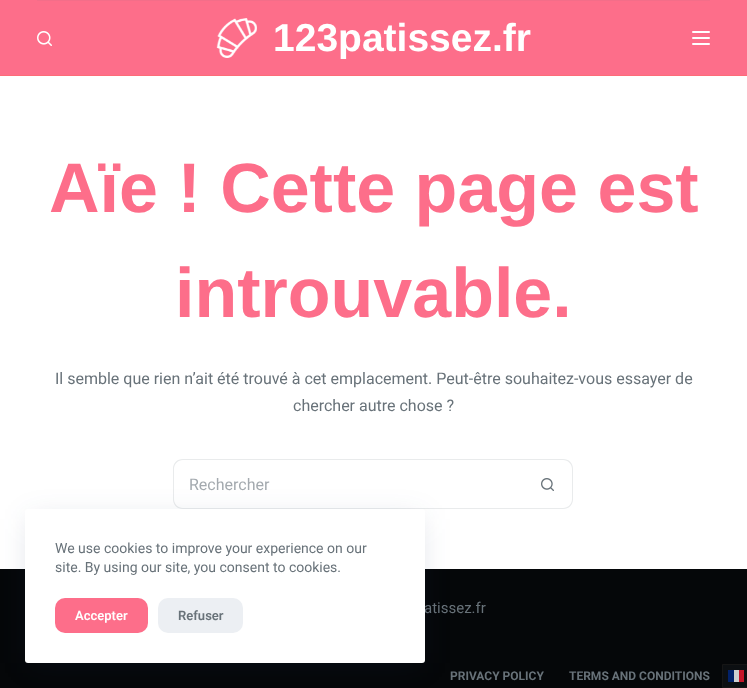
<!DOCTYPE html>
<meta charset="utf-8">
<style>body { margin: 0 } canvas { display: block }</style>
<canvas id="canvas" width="747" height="688"></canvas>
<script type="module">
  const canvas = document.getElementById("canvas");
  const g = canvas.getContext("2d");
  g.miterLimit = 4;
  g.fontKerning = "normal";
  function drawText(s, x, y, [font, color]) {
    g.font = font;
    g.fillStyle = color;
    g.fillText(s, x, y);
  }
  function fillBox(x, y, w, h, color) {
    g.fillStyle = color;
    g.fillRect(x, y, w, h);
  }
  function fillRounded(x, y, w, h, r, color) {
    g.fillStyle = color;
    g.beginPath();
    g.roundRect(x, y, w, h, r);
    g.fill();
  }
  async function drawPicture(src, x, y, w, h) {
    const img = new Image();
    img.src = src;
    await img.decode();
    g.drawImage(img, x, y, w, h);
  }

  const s1 = ["bold 39px Liberation Sans", "#FFFFFF"];
  const s2 = ["bold 70px Liberation Sans", "#FD6E8A"];
  const s3 = ["16px Roboto", "#687279"];
  const s4 = ["16px Roboto", "#A4AAAF"];
  const s5 = ["15px Roboto", "#687279"];
  const s6 = ["bold 12px Roboto", "#687279"];
  const s7 = ["14px Roboto", "#687279"];
  const s8 = ["600 13px Roboto", "#FFFFFF"];
  const s9 = ["600 13px Roboto", "#687279"];

  fillBox(0, 0, 747, 688, "#FFFFFF");
  fillBox(0, 0, 747, 75, "#FD6E8A");
  fillBox(0, 75, 747, 1, "#FD6C78");
  fillBox(37, 0, 673, 1, "#F36E89");
  await drawPicture("pic1.png", 37, 31, 15, 15);
  await drawPicture("pic2.png", 216, 18, 41, 40);
  drawText("123patissez.fr", 273, 51, s1);
  fillRounded(692, 31, 18, 2, 1, "#FFFFFF");
  fillRounded(692, 37, 18, 2, 1, "#FFFFFF");
  fillRounded(692, 43, 18, 2, 1, "#FFFFFF");
  drawText("Aïe ! Cette page est", 49, 212, s2);
  drawText("introuvable.", 175, 317, s2);
  drawText("Il semble que rien n’ait été trouvé à cet emplacement. Peut-être souhaitez-vous essayer de", 55, 384, s3);
  drawText("chercher autre chose ?", 293, 411, s3);
  g.fillStyle = "#E9EBEC";
  g.beginPath();
  g.moveTo(183, 459);
  g.lineTo(523, 459);
  g.lineTo(523, 509);
  g.lineTo(183, 509);
  g.bezierCurveTo(177, 509, 173, 505, 173, 499);
  g.lineTo(173, 469);
  g.bezierCurveTo(173, 463, 177, 459, 183, 459);
  g.closePath();
  g.moveTo(183, 460);
  g.lineTo(523, 460);
  g.lineTo(523, 508);
  g.lineTo(183, 508);
  g.bezierCurveTo(178, 508, 174, 504, 174, 499);
  g.lineTo(174, 469);
  g.bezierCurveTo(174, 464, 178, 460, 183, 460);
  g.closePath();
  g.fill("evenodd");
  drawText("Rechercher", 189, 490, s4);
  g.fillStyle = "#E9EBEC";
  g.beginPath();
  g.moveTo(523, 459);
  g.lineTo(563, 459);
  g.bezierCurveTo(569, 459, 573, 463, 573, 469);
  g.lineTo(573, 499);
  g.bezierCurveTo(573, 505, 569, 509, 563, 509);
  g.lineTo(523, 509);
  g.closePath();
  g.moveTo(523, 460);
  g.lineTo(563, 460);
  g.bezierCurveTo(568, 460, 572, 464, 572, 469);
  g.lineTo(572, 499);
  g.bezierCurveTo(572, 504, 568, 508, 563, 508);
  g.lineTo(523, 508);
  g.closePath();
  g.fill("evenodd");
  await drawPicture("pic3.png", 541, 478, 13, 13);
  fillBox(0, 569, 747, 119, "#050709");
  drawText("atissez.fr", 424, 613, s5);
  drawText("PRIVACY POLICY", 450, 680, s6);
  drawText("TERMS AND CONDITIONS", 569, 680, s6);
  g.fillStyle = "#0C0F12";
  g.beginPath();
  g.rect(722.5, 664.5, 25, 23);
  g.fill();
  g.strokeStyle = "#161616";
  g.stroke();
  fillBox(728, 670, 6, 12, "#022169");
  fillBox(734, 670, 5, 12, "#CECFD0");
  fillBox(739, 670, 5, 12, "#C5162A");
  g.fillStyle = "rgba(34, 56, 101, 0.15)";
  g.filter = "blur(15px)";
  g.beginPath();
  g.rect(30, 519, 390, 144);
  g.fill();
  g.filter = "none";
  fillRounded(25, 509, 400, 154, 3, "#FFFFFF");
  drawText("We use cookies to improve your experience on our", 55, 553, s7);
  drawText("site. By using our site, you consent to cookies.", 55, 572, s7);
  fillRounded(55, 598, 93, 35, 10, "#FD6E8A");
  drawText("Accepter", 75, 620, s8);
  fillRounded(158, 598, 85, 35, 10, "#ECEFF3");
  drawText("Refuser", 178, 620, s9);
</script>
